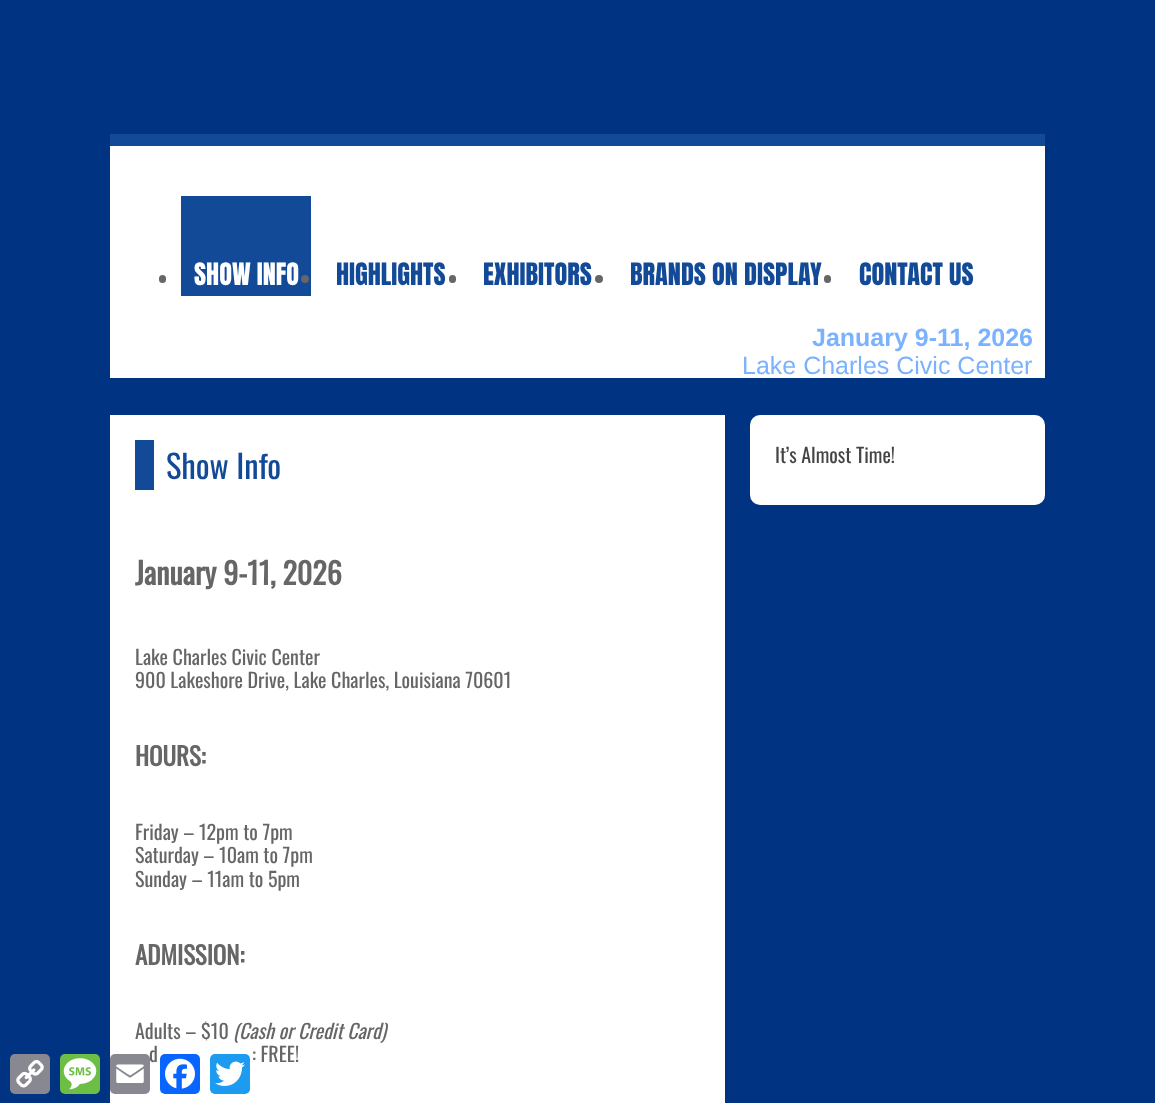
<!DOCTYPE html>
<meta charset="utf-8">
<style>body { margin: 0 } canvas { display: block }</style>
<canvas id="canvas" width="1155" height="1103"></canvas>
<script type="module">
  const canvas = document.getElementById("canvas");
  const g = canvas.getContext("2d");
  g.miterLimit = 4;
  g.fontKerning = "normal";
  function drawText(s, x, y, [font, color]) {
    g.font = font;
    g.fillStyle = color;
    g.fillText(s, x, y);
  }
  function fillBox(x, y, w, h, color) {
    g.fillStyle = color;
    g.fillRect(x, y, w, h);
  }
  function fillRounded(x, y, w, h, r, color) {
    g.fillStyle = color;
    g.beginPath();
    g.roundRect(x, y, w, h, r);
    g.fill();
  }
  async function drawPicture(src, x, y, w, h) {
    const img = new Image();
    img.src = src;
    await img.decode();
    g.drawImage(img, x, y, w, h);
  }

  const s1 = ["26.25px Anton", "#FFFFFF"];
  const s2 = ["26.25px Anton", "#124A98"];
  const s3 = ["bold 25px Liberation Sans", "#7AB2FF"];
  const s4 = ["25px Liberation Sans", "#7AB2FF"];
  const s5 = ["32.5px Oswald", "#124A98"];
  const s6 = ["bold 30px Oswald", "#666666"];
  const s7 = ["20px Oswald", "#666666"];
  const s8 = ["bold 25px Oswald", "#666666"];
  const s9 = ["italic 20px Oswald", "#666666"];
  const s10 = ["20px Oswald", "#444444"];

  fillBox(0, 0, 1155, 1103, "#003482");
  fillBox(110, 134, 935, 12, "#124A98");
  fillBox(110, 146, 935, 232, "#FFFFFF");
  fillRounded(159, 275, 7, 8, 3.5, "#666666");
  fillBox(181, 196, 130, 100, "#124A98");
  drawText("SHOW INFO", 194, 285, s1);
  g.fillStyle = "#666666";
  g.beginPath();
  g.arc(305, 279, 4, 0, Math.PI * 2);
  g.fill();
  drawText("HIGHLIGHTS", 336, 285, s2);
  fillRounded(449, 275, 7, 8, 3.5, "#666666");
  drawText("EXHIBITORS", 483, 285, s2);
  g.fillStyle = "#666666";
  g.beginPath();
  g.arc(599, 279, 4, 0, Math.PI * 2);
  g.fill();
  drawText("BRANDS ON DISPLAY", 630, 285, s2);
  fillRounded(824, 275, 7, 8, 3.5, "#666666");
  drawText("CONTACT US", 859, 285, s2);
  drawText("January 9-11, 2026", 812, 346, s3);
  drawText("Lake Charles Civic Center", 742, 374, s4);
  fillBox(110, 415, 615, 688, "#FFFFFF");
  fillBox(135, 440, 19, 50, "#124A98");
  drawText("Show Info", 166, 479, s5);
  drawText("January 9-11, 2026", 135, 585, s6);
  drawText("Lake Charles Civic Center", 135, 665, s7);
  drawText("900 Lakeshore Drive, Lake Charles, Louisiana 70601", 135, 688, s7);
  drawText("HOURS:", 135, 766, s8);
  drawText("Friday – 12pm to 7pm", 135, 840, s7);
  drawText("Saturday – 10am to 7pm", 135, 863, s7);
  drawText("Sunday – 11am to 5pm", 135, 887, s7);
  drawText("ADMISSION:", 135, 965, s8);
  drawText("Adults – $10", 135, 1039, s7);
  drawText("(Cash or Credit Card)", 233, 1039, s9);
  drawText("d", 149, 1062, s7);
  drawText(": FREE!", 252, 1062, s7);
  fillRounded(750, 415, 295, 90, 10, "#FFFFFF");
  drawText("It’s Almost Time!", 775, 463, s10);
  fillRounded(10, 1054, 40, 40, 5, "#888990");
  await drawPicture("pic1.png", 16, 1060, 28, 28);
  fillRounded(60, 1054, 40, 40, 5, "#6CBE45");
  await drawPicture("pic2.png", 63, 1058, 34, 32);
  fillRounded(110, 1054, 40, 40, 5, "#888990");
  await drawPicture("pic3.png", 116, 1064, 28, 19);
  fillRounded(160, 1054, 40, 40, 5, "#0866FF");
  await drawPicture("pic4.png", 165, 1058, 30, 31);
  fillRounded(210, 1054, 40, 40, 5, "#1D9BF0");
  await drawPicture("pic5.png", 215, 1061, 30, 25);
</script>
